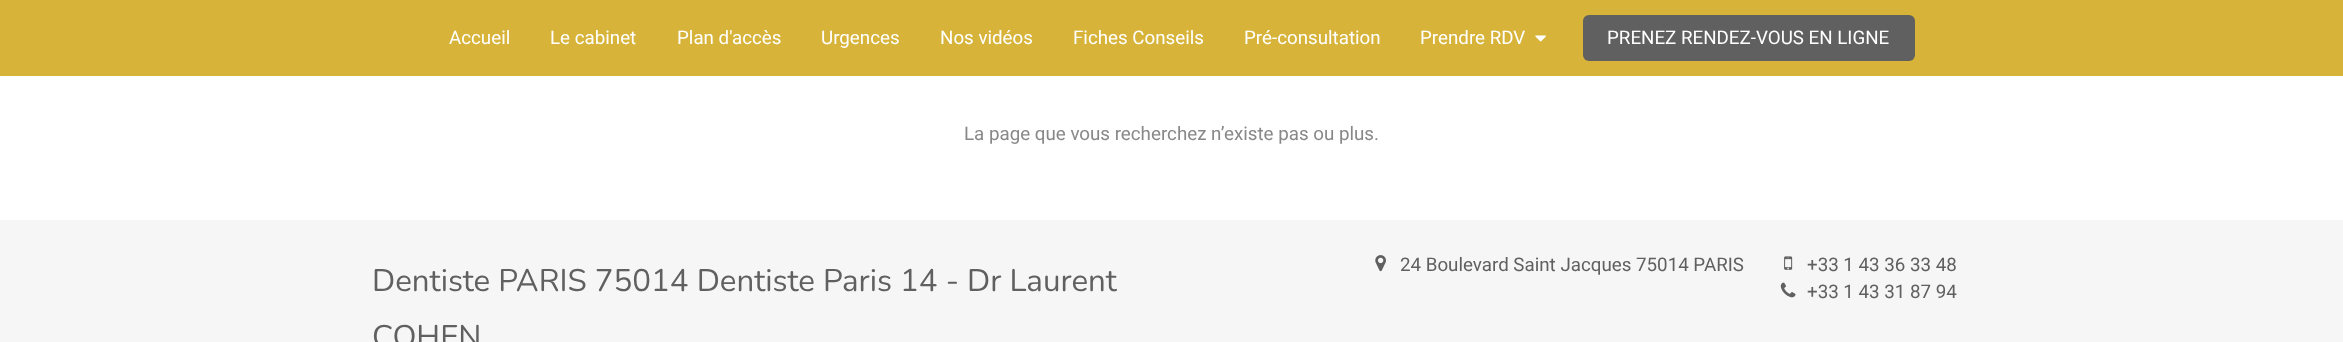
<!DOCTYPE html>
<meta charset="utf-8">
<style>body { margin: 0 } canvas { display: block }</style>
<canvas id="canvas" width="2343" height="342"></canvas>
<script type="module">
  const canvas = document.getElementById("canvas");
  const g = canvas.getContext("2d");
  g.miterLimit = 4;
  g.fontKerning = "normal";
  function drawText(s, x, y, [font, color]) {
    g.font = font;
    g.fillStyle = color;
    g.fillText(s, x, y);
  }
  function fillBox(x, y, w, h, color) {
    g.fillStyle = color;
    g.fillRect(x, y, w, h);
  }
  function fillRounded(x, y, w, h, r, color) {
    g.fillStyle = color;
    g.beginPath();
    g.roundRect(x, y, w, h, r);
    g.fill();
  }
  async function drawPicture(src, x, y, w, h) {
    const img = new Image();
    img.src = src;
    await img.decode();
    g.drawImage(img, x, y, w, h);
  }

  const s1 = ["18.75px Roboto", "#FFFFFF"];
  const s2 = ["18.75px Roboto", "#888888"];
  const s3 = ["31.25px Nunito", "#606060"];
  const s4 = ["18.75px Roboto", "#606060"];

  fillBox(0, 0, 2343, 342, "#FFFFFF");
  fillBox(0, 0, 2343, 76, "#D7B439");
  drawText("Accueil", 449, 44, s1);
  drawText("Le cabinet", 550, 44, s1);
  drawText("Plan d'accès", 677, 44, s1);
  drawText("Urgences", 821, 44, s1);
  drawText("Nos vidéos", 940, 44, s1);
  drawText("Fiches Conseils", 1073, 44, s1);
  drawText("Pré-consultation", 1244, 44, s1);
  drawText("Prendre RDV", 1420, 44, s1);
  await drawPicture("pic1.png", 1535, 35, 11, 7);
  fillRounded(1583, 15, 332, 46, 6, "#606060");
  drawText("PRENEZ RENDEZ-VOUS EN LIGNE", 1607, 44, s1);
  drawText("La page que vous recherchez n’existe pas ou plus.", 964, 140, s2);
  fillBox(0, 220, 2343, 122, "#F6F6F6");
  drawText("Dentiste PARIS 75014 Dentiste Paris 14 - Dr Laurent", 372, 291, s3);
  drawText("COHEN", 372, 347, s3);
  await drawPicture("pic2.png", 1375, 255, 11, 17);
  drawText("24 Boulevard Saint Jacques 75014 PARIS", 1400, 271, s4);
  await drawPicture("pic3.png", 1784, 256, 9, 14);
  drawText("+33 1 43 36 33 48", 1807, 271, s4);
  await drawPicture("pic4.png", 1780, 282, 16, 16);
  drawText("+33 1 43 31 87 94", 1807, 298, s4);
</script>
